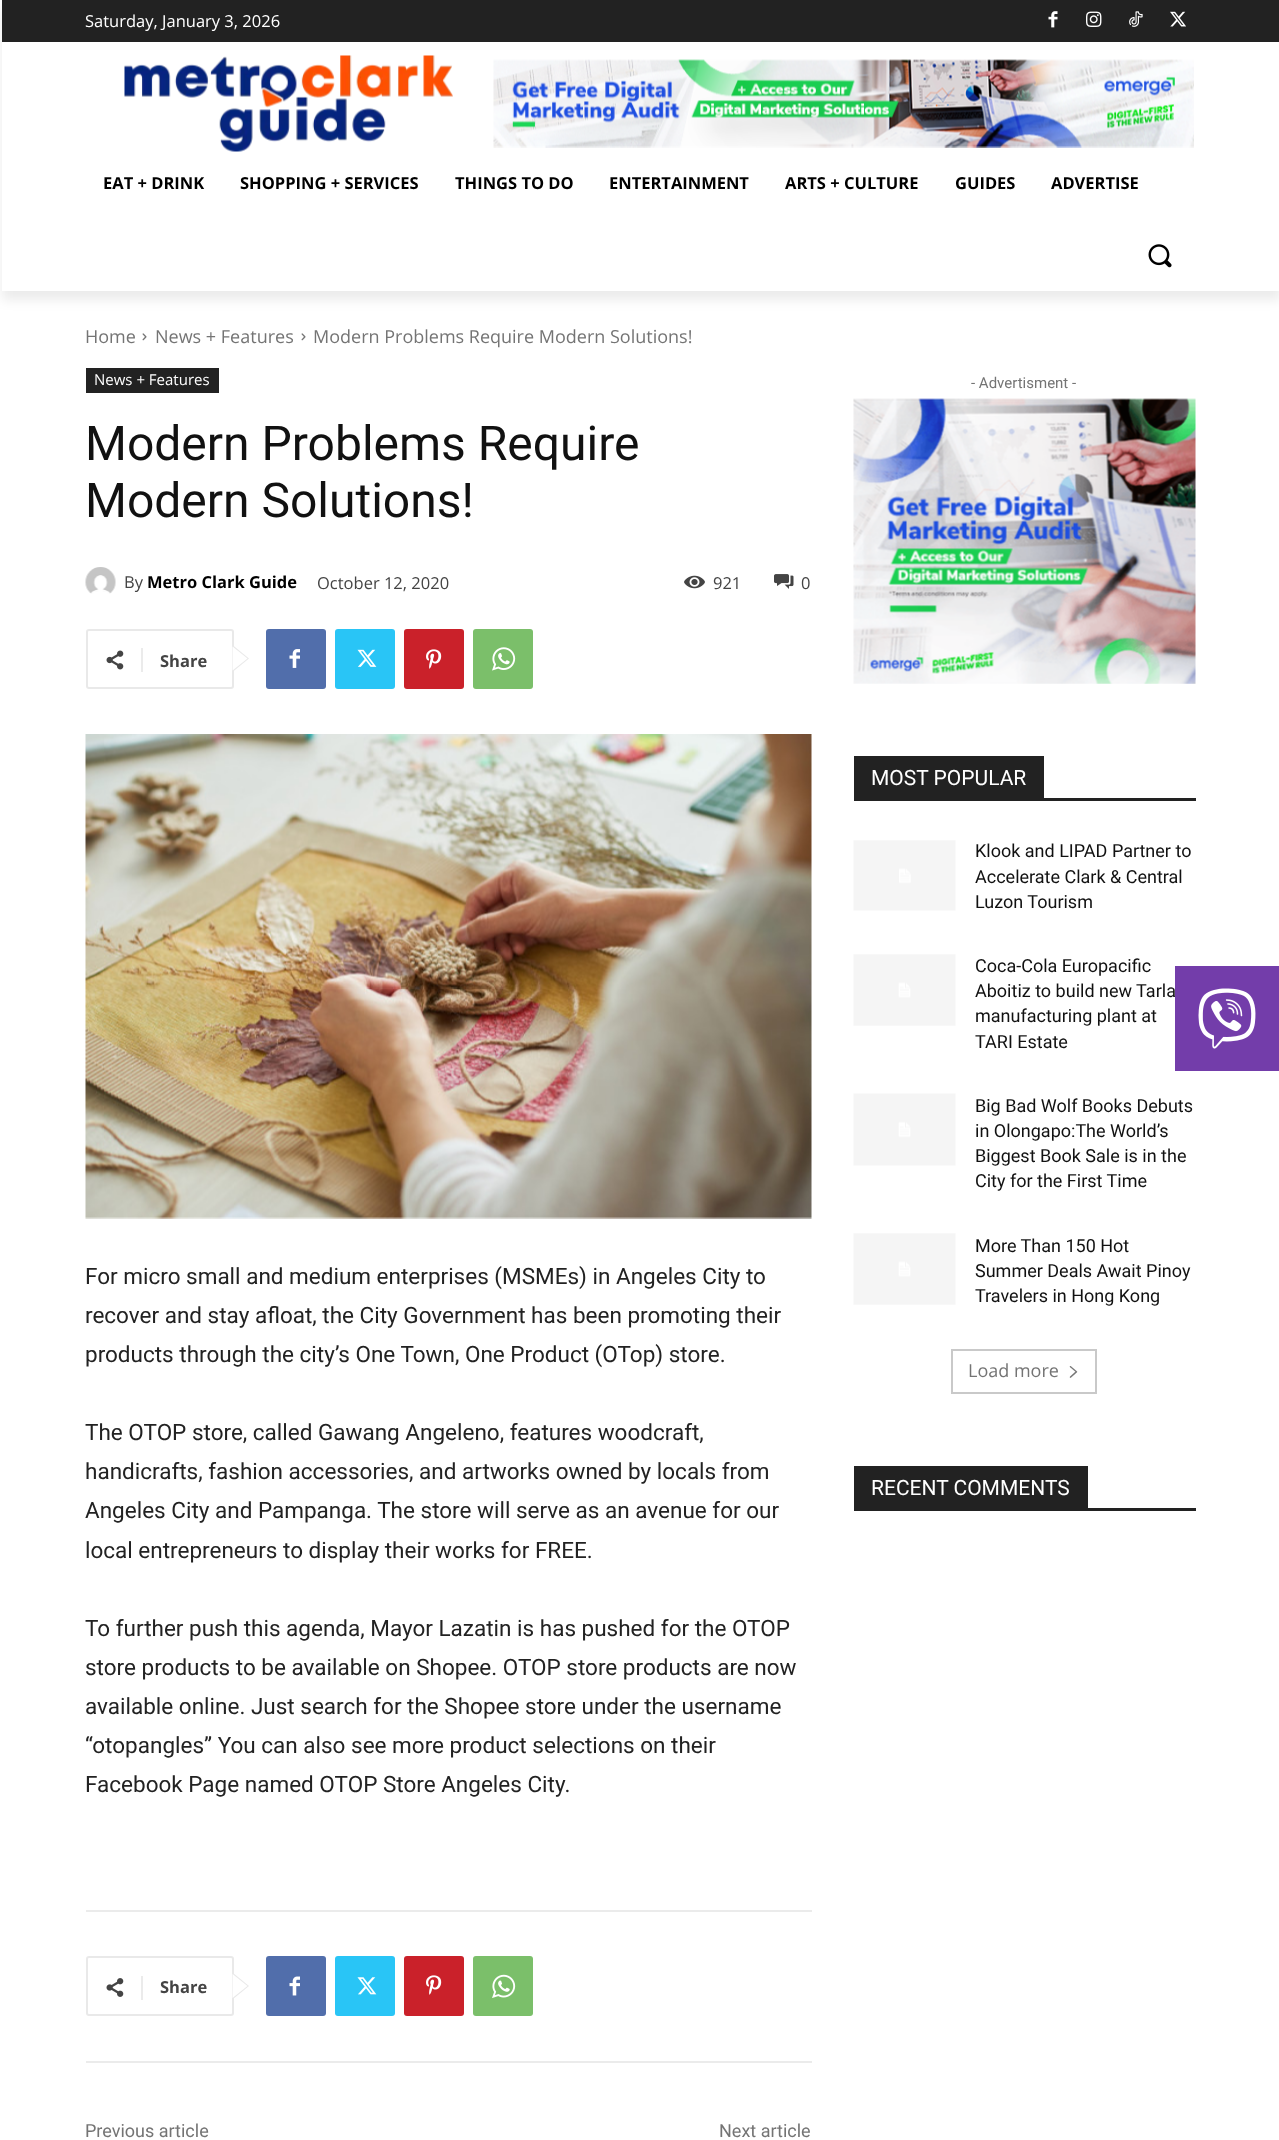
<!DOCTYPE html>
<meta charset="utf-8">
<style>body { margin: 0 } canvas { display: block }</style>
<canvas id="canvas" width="1279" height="2140"></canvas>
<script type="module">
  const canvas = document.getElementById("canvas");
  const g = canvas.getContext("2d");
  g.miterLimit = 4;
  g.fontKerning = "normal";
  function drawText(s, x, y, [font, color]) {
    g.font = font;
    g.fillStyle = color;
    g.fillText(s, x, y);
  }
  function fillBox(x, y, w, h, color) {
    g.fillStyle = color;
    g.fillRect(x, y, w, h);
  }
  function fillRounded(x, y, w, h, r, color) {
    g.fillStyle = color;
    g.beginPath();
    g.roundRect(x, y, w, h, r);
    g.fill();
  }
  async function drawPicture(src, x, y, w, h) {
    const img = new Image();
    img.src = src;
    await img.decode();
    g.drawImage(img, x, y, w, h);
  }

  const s1 = ["16.5px Open Sans", "#FFFFFF"];
  const s2 = ["bold 16.5px Open Sans", "#000000"];
  const s3 = ["18px Open Sans", "#747474"];
  const s4 = ["15px Open Sans", "#FFFFFF"];
  const s5 = ["48px Roboto", "#111111"];
  const s6 = ["16.5px Open Sans", "#444444"];
  const s7 = ["bold 16.5px Open Sans", "#444444"];
  const s8 = ["22.5px Roboto", "#222222"];
  const s9 = ["18px Roboto", "#747474"];
  const s10 = ["15px Roboto", "#747474"];
  const s11 = ["21px Roboto", "#FFFFFF"];
  const s12 = ["18px Roboto", "#111111"];

  fillBox(0, 0, 1279, 2140, "#FFFFFF");
  fillBox(2, 0, 1277, 42, "#222222");
  await drawPicture("pic1.png", 1048, 11, 10, 17);
  await drawPicture("pic2.png", 1086, 11, 16, 16);
  await drawPicture("pic3.png", 1129, 11, 14, 16);
  await drawPicture("pic4.png", 1170, 11, 16, 16);
  await drawPicture("pic5.png", 124, 55, 329, 97);
  await drawPicture("pic6.png", 493, 59, 701, 89);
  g.save();
  g.beginPath();
  g.moveTo(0, 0);
  g.lineTo(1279, 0);
  g.lineTo(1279, 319);
  g.lineTo(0, 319);
  g.closePath();
  g.moveTo(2, 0);
  g.lineTo(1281, 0);
  g.lineTo(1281, 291);
  g.lineTo(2, 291);
  g.closePath();
  g.clip("evenodd");
  g.fillStyle = "rgba(0, 0, 0, 0.08)";
  g.filter = "blur(6px)";
  g.beginPath();
  g.rect(2, 9, 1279, 291);
  g.fill();
  g.filter = "none";
  g.restore();
  drawText("Saturday, January 3, 2026", 85, 27, s1);
  drawText("EAT + DRINK", 103, 189, s2);
  drawText("SHOPPING + SERVICES", 240, 189, s2);
  drawText("THINGS TO DO", 455, 189, s2);
  drawText("ENTERTAINMENT", 609, 189, s2);
  drawText("ARTS + CULTURE", 785, 189, s2);
  drawText("GUIDES", 955, 189, s2);
  drawText("ADVERTISE", 1051, 189, s2);
  await drawPicture("pic7.png", 1148, 244, 24, 24);
  drawText("Home", 85, 343, s3);
  await drawPicture("pic8.png", 142, 333, 5, 8);
  drawText("News + Features", 155, 343, s3);
  await drawPicture("pic8.png", 301, 333, 5, 8);
  drawText("Modern Problems Require Modern Solutions!", 313, 343, s3);
  fillBox(86, 368, 133, 25, "#222222");
  drawText("News + Features", 94, 385, s4);
  drawText("Modern Problems Require", 85, 460, s5);
  drawText("Modern Solutions!", 85, 517, s5);
  await drawPicture("pic9.png", 85, 567, 31, 27);
  drawText("By", 124, 588, s6);
  drawText("Metro Clark Guide", 147, 588, s2);
  drawText("October 12, 2020", 317, 589, s6);
  await drawPicture("pic10.png", 684, 575, 21, 14);
  drawText("921", 713, 589, s6);
  await drawPicture("pic11.png", 774, 574, 20, 15);
  drawText("0", 801, 589, s6);
  g.beginPath();
  g.roundRect(87, 630, 146, 58, 2);
  g.strokeStyle = "#E9E9E9";
  g.lineWidth = 2;
  g.stroke();
  g.fillStyle = "#E9E9E9";
  g.beginPath();
  g.moveTo(232.5, 672);
  g.lineTo(232.5, 645);
  g.lineTo(249, 658.5);
  g.closePath();
  g.fill();
  await drawPicture("pic12.png", 106, 650, 18, 20);
  fillBox(141, 648, 2, 24, "#EBEBEB");
  drawText("Share", 160, 667, s7);
  g.fillStyle = "#FFFFFF";
  g.beginPath();
  g.moveTo(232.5, 670.5);
  g.lineTo(232.5, 646.5);
  g.lineTo(247.5, 658.5);
  g.closePath();
  g.fill();
  fillRounded(266, 629, 60, 60, 3, "#516EAB");
  await drawPicture("pic13.png", 289, 649, 11, 19);
  fillRounded(335, 629, 60, 60, 3, "#29C5F6");
  await drawPicture("pic14.png", 357, 649, 20, 18);
  fillRounded(404, 629, 60, 60, 3, "#CA212A");
  await drawPicture("pic15.png", 426, 649, 16, 20);
  fillRounded(473, 629, 60, 60, 3, "#7BBF6A");
  await drawPicture("pic16.png", 492, 647, 24, 24);
  await drawPicture("pic17.png", 85, 734, 727, 485);
  drawText("For micro small and medium enterprises (MSMEs) in Angeles City to", 85, 1284, s8);
  drawText("recover and stay afloat, the City Government has been promoting their", 85, 1323, s8);
  drawText("products through the city’s One Town, One Product (OTop) store.", 85, 1362, s8);
  drawText("The OTOP store, called Gawang Angeleno, features woodcraft,", 85, 1440, s8);
  drawText("handicrafts, fashion accessories, and artworks owned by locals from", 85, 1479, s8);
  drawText("Angeles City and Pampanga. The store will serve as an avenue for our", 85, 1518, s8);
  drawText("local entrepreneurs to display their works for FREE.", 85, 1558, s8);
  drawText("To further push this agenda, Mayor Lazatin is has pushed for the OTOP", 85, 1636, s8);
  drawText("store products to be available on Shopee. OTOP store products are now", 85, 1675, s8);
  drawText("available online. Just search for the Shopee store under the username", 85, 1714, s8);
  drawText("“otopangles” You can also see more product selections on their", 85, 1753, s8);
  drawText("Facebook Page named OTOP Store Angeles City.", 85, 1792, s8);
  fillBox(86, 1910, 726, 2, "#EBEBEB");
  g.beginPath();
  g.roundRect(87, 1957, 146, 58, 2);
  g.stroke();
  g.fillStyle = "#E9E9E9";
  g.beginPath();
  g.moveTo(232.5, 1999.5);
  g.lineTo(232.5, 1972.5);
  g.lineTo(249, 1986);
  g.closePath();
  g.fill();
  await drawPicture("pic18.png", 106, 1978, 18, 19);
  fillBox(141, 1976, 2, 24, "#EBEBEB");
  drawText("Share", 160, 1993, s7);
  g.fillStyle = "#FFFFFF";
  g.beginPath();
  g.moveTo(232.5, 1998);
  g.lineTo(232.5, 1974);
  g.lineTo(247.5, 1986);
  g.closePath();
  g.fill();
  fillRounded(266, 1956, 60, 60, 3, "#516EAB");
  await drawPicture("pic19.png", 289, 1976, 11, 20);
  fillRounded(335, 1956, 60, 60, 3, "#29C5F6");
  await drawPicture("pic20.png", 357, 1977, 20, 18);
  fillRounded(404, 1956, 60, 60, 3, "#CA212A");
  await drawPicture("pic15.png", 426, 1975, 16, 20);
  fillRounded(473, 1956, 60, 60, 3, "#7BBF6A");
  await drawPicture("pic21.png", 492, 1974, 24, 24);
  fillBox(86, 2061, 726, 2, "#EBEBEB");
  drawText("Previous article", 85, 2137, s9);
  drawText("Next article", 719, 2137, s9);
  drawText("- Advertisment -", 971, 388, s10);
  await drawPicture("pic22.png", 853, 398, 343, 286);
  fillBox(854, 798, 342, 3, "#222222");
  fillBox(854, 756, 190, 42, "#222222");
  drawText("MOST POPULAR", 871, 785, s11);
  await drawPicture("pic23.png", 853, 840, 103, 71);
  drawText("Klook and LIPAD Partner to", 975, 857, s12);
  drawText("Accelerate Clark & Central", 975, 883, s12);
  drawText("Luzon Tourism", 975, 908, s12);
  await drawPicture("pic24.png", 853, 954, 103, 72);
  drawText("Coca-Cola Europacific", 975, 972, s12);
  drawText("Aboitiz to build new Tarla", 975, 997, s12);
  drawText("manufacturing plant at", 975, 1022, s12);
  drawText("TARI Estate", 975, 1048, s12);
  await drawPicture("pic25.png", 853, 1093, 103, 73);
  drawText("Big Bad Wolf Books Debuts", 975, 1112, s12);
  drawText("in Olongapo:The World’s", 975, 1137, s12);
  drawText("Biggest Book Sale is in the", 975, 1162, s12);
  drawText("City for the First Time", 975, 1187, s12);
  await drawPicture("pic24.png", 853, 1233, 103, 72);
  drawText("More Than 150 Hot", 975, 1252, s12);
  drawText("Summer Deals Await Pinoy", 975, 1277, s12);
  drawText("Travelers in Hong Kong", 975, 1302, s12);
  g.strokeStyle = "#C9C9C9";
  g.strokeRect(952, 1350, 144, 43);
  drawText("Load more", 968, 1377, s3);
  await drawPicture("pic26.png", 1069, 1366, 9, 12);
  fillBox(854, 1508, 342, 3, "#222222");
  fillBox(854, 1466, 234, 42, "#222222");
  drawText("RECENT COMMENTS", 871, 1495, s11);
  fillBox(1175, 966, 104, 105, "#733DAA");
  await drawPicture("pic27.png", 1198, 988, 58, 61);
</script>
